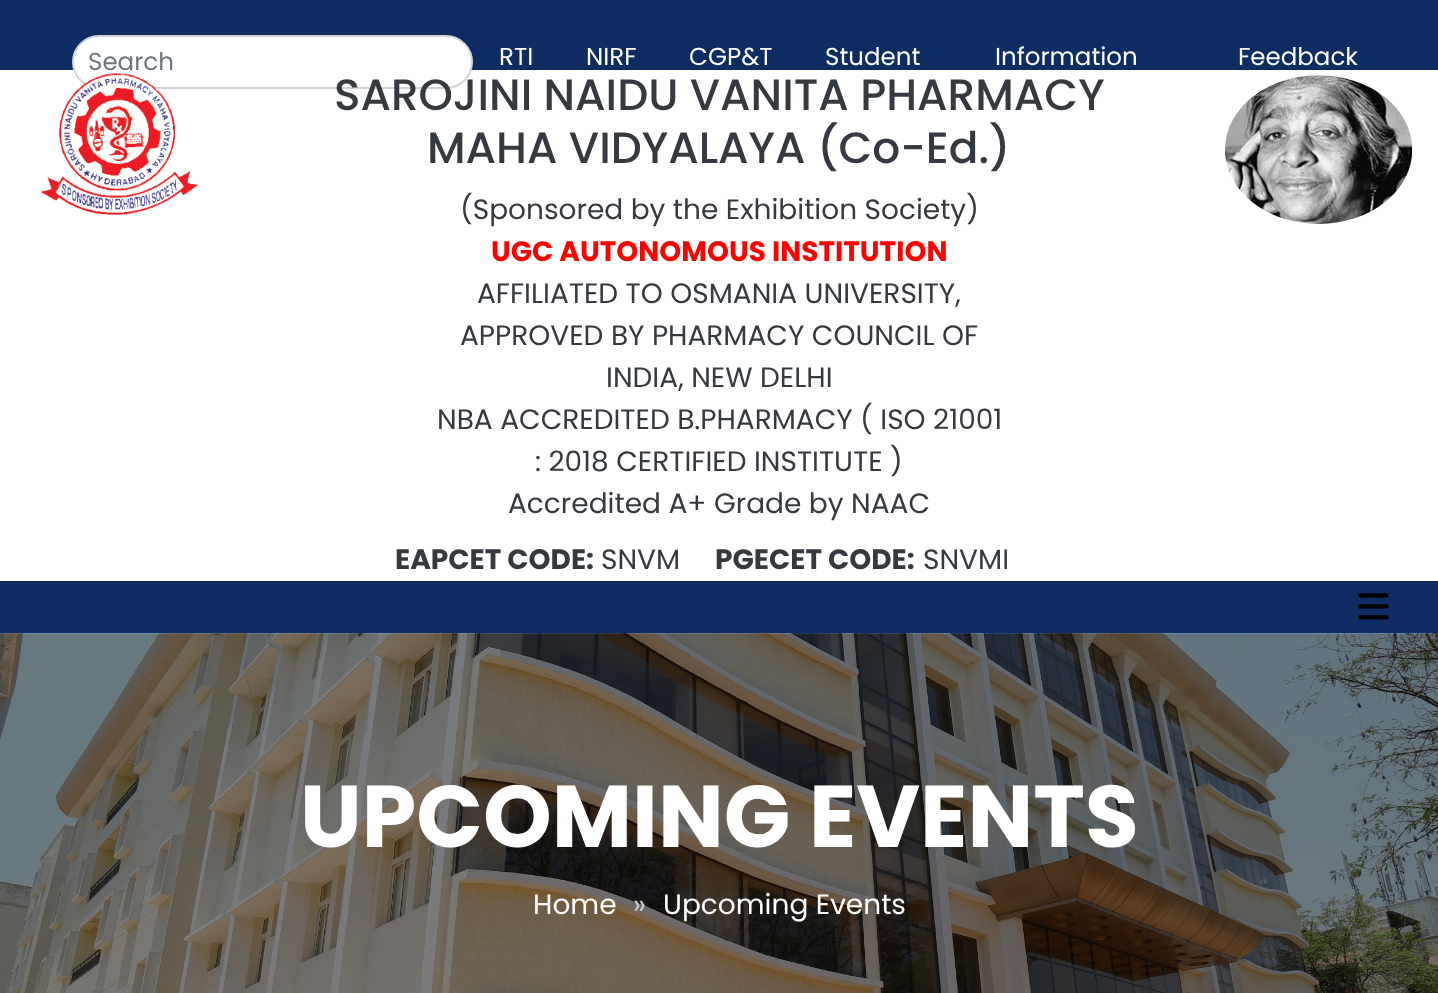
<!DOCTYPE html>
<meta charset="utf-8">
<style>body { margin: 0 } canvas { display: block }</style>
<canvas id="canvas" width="1438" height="993"></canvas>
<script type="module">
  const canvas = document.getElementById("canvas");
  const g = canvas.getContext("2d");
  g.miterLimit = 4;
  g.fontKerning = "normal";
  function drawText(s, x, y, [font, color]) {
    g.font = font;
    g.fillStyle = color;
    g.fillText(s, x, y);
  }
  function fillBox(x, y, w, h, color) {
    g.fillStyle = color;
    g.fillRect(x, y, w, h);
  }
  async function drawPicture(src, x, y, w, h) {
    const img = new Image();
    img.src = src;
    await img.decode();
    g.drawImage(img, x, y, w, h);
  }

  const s1 = ["24.5px Poppins", "#6C757D"];
  const s2 = ["24.5px Poppins", "#FFFFFF"];
  const s3 = ["500 43.75px Poppins", "#343A40"];
  const s4 = ["28px Poppins", "#343A40"];
  const s5 = ["bold 28px Poppins", "#FF0000"];
  const s6 = ["bold 28px Poppins", "#343A40"];
  const s7 = ["bold 87.5px Poppins", "#FFFFFF"];
  const s8 = ["28px Poppins", "#FFFFFF"];
  const s9 = ["28px Poppins", "#CCCCCC"];

  fillBox(0, 0, 1438, 993, "#FFFFFF");
  fillBox(0, 0, 1438, 70, "#0D2D62");
  g.fillStyle = "#FFFFFF";
  g.beginPath();
  g.roundRect(73, 36, 399, 52, 26);
  g.fill();
  g.strokeStyle = "#CED4DA";
  g.lineWidth = 2;
  g.stroke();
  drawText("Search", 88, 70, s1);
  drawText("RTI", 499, 65, s2);
  drawText("NIRF", 586, 65, s2);
  drawText("CGP&T", 689, 65, s2);
  drawText("Student", 825, 65, s2);
  drawText("Information", 995, 65, s2);
  drawText("Feedback", 1238, 65, s2);
  await drawPicture("pic1.png", 41, 73, 157, 143);
  drawText("SAROJINI NAIDU VANITA PHARMACY", 334, 110, s3);
  drawText("MAHA VIDYALAYA (Co-Ed.)", 427, 163, s3);
  drawText("(Sponsored by the Exhibition Society)", 460, 219, s4);
  drawText("UGC AUTONOMOUS INSTITUTION", 491, 261, s5);
  drawText("AFFILIATED TO OSMANIA UNIVERSITY,", 477, 303, s4);
  drawText("APPROVED BY PHARMACY COUNCIL OF", 460, 345, s4);
  drawText("INDIA, NEW DELHI", 606, 387, s4);
  drawText("NBA ACCREDITED B.PHARMACY ( ISO 21001", 437, 429, s4);
  drawText(": 2018 CERTIFIED INSTITUTE )", 535, 471, s4);
  drawText("Accredited A+ Grade by NAAC", 508, 513, s4);
  drawText("EAPCET CODE:", 395, 569, s6);
  drawText("SNVM", 601, 569, s4);
  drawText("PGECET CODE:", 715, 569, s6);
  drawText("SNVMI", 923, 569, s4);
  await drawPicture("pic2.png", 1225, 75, 188, 149);
  fillBox(0, 581, 1438, 53, "#0D2D62");
  await drawPicture("pic3.png", 1358, 593, 31, 27);
  await drawPicture("pic4.png", 0, 633, 1438, 360);
  drawText("UPCOMING EVENTS", 300, 847, s7);
  drawText("Home", 533, 914, s8);
  drawText("»", 633, 914, s9);
  drawText("Upcoming Events", 663, 914, s8);
</script>
